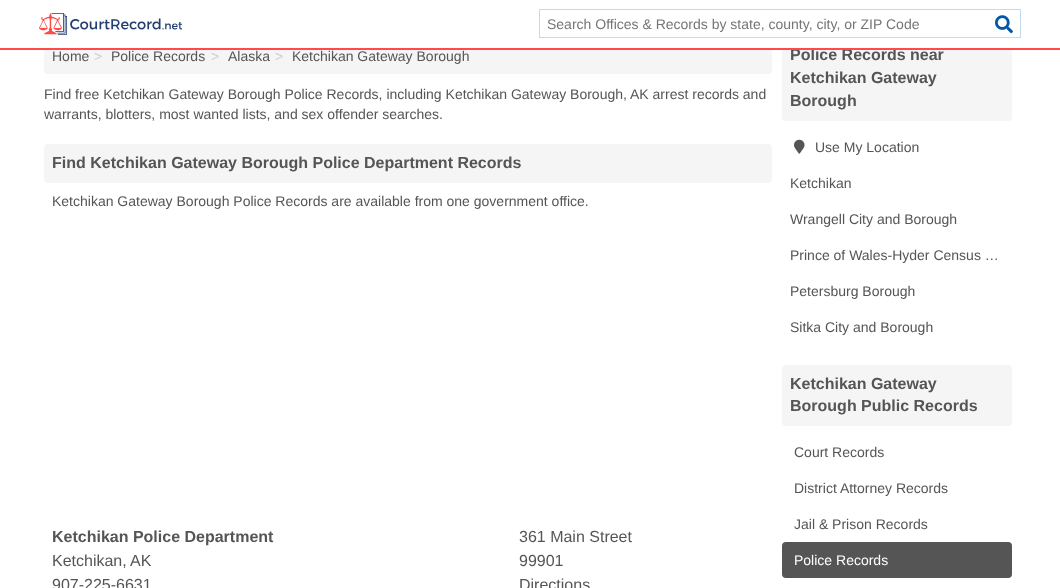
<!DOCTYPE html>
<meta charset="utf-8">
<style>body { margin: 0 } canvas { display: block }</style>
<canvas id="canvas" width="1060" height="588"></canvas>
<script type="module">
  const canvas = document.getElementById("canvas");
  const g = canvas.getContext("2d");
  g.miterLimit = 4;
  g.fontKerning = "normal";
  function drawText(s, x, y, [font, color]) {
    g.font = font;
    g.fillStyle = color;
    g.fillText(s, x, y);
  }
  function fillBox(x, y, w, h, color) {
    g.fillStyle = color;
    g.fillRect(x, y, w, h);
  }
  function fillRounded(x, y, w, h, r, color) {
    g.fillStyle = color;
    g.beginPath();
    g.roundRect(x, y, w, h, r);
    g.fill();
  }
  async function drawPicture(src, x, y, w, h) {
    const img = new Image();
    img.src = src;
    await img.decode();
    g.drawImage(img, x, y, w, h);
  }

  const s1 = ["bold 16px Liberation Sans", "#555555"];
  const s2 = ["14px Liberation Sans", "#757575"];
  const s3 = ["14px Liberation Sans", "#555555"];
  const s4 = ["14px Liberation Sans", "#CCCCCC"];
  const s5 = ["16px Liberation Sans", "#555555"];
  const s6 = ["14px Liberation Sans", "#FFFFFF"];

  fillBox(0, 0, 1060, 588, "#FFFFFF");
  fillRounded(44, 38, 728, 36, 4, "#F5F5F5");
  fillRounded(782, 36, 230, 85, 4, "#F5F5F5");
  fillBox(44, 36, 968, 12, "#FFFFFF");
  drawText("Police Records near", 790, 60, s1);
  fillBox(0, 48, 1060, 2, "#FF4A4A");
  await drawPicture("pic1.png", 39, 13, 143, 22);
  g.strokeStyle = "#C5DAED";
  g.strokeRect(539.5, 9.5, 481, 28);
  drawText("Search Offices & Records by state, county, city, or ZIP Code", 547, 29, s2);
  await drawPicture("pic2.png", 995, 15, 18, 19);
  drawText("Home", 52, 61, s3);
  drawText(">", 94, 61, s4);
  drawText("Police Records", 111, 61, s3);
  drawText(">", 211, 61, s4);
  drawText("Alaska", 228, 61, s3);
  drawText(">", 275, 61, s4);
  drawText("Ketchikan Gateway Borough", 292, 61, s3);
  drawText("Find free Ketchikan Gateway Borough Police Records, including Ketchikan Gateway Borough, AK arrest records and", 44, 99, s3);
  drawText("warrants, blotters, most wanted lists, and sex offender searches.", 44, 119, s3);
  fillRounded(44, 144, 728, 39, 4, "#F5F5F5");
  drawText("Find Ketchikan Gateway Borough Police Department Records", 52, 168, s1);
  drawText("Ketchikan Gateway Borough Police Records are available from one government office.", 52, 206, s3);
  drawText("Ketchikan Police Department", 52, 542, s1);
  drawText("361 Main Street", 519, 542, s5);
  drawText("Ketchikan,", 52, 566, s5);
  drawText("AK", 130, 566, s5);
  drawText("99901", 519, 566, s5);
  drawText("907-225-6631", 52, 590, s5);
  drawText("Directions", 519, 590, s5);
  drawText("Ketchikan Gateway", 790, 83, s1);
  drawText("Borough", 790, 106, s1);
  await drawPicture("pic3.png", 794, 139, 11, 15);
  drawText("Use My Location", 815, 152, s3);
  drawText("Ketchikan", 790, 188, s3);
  drawText("Wrangell City and Borough", 790, 224, s3);
  drawText("Prince of Wales-Hyder Census …", 790, 260, s3);
  drawText("Petersburg Borough", 790, 296, s3);
  drawText("Sitka City and Borough", 790, 332, s3);
  fillRounded(782, 365, 230, 61, 4, "#F5F5F5");
  drawText("Ketchikan Gateway", 790, 389, s1);
  drawText("Borough Public Records", 790, 411, s1);
  drawText("Court Records", 794, 457, s3);
  drawText("District Attorney Records", 794, 493, s3);
  drawText("Jail & Prison Records", 794, 529, s3);
  fillRounded(782, 542, 230, 36, 4, "#555555");
  drawText("Police Records", 794, 565, s6);
</script>
